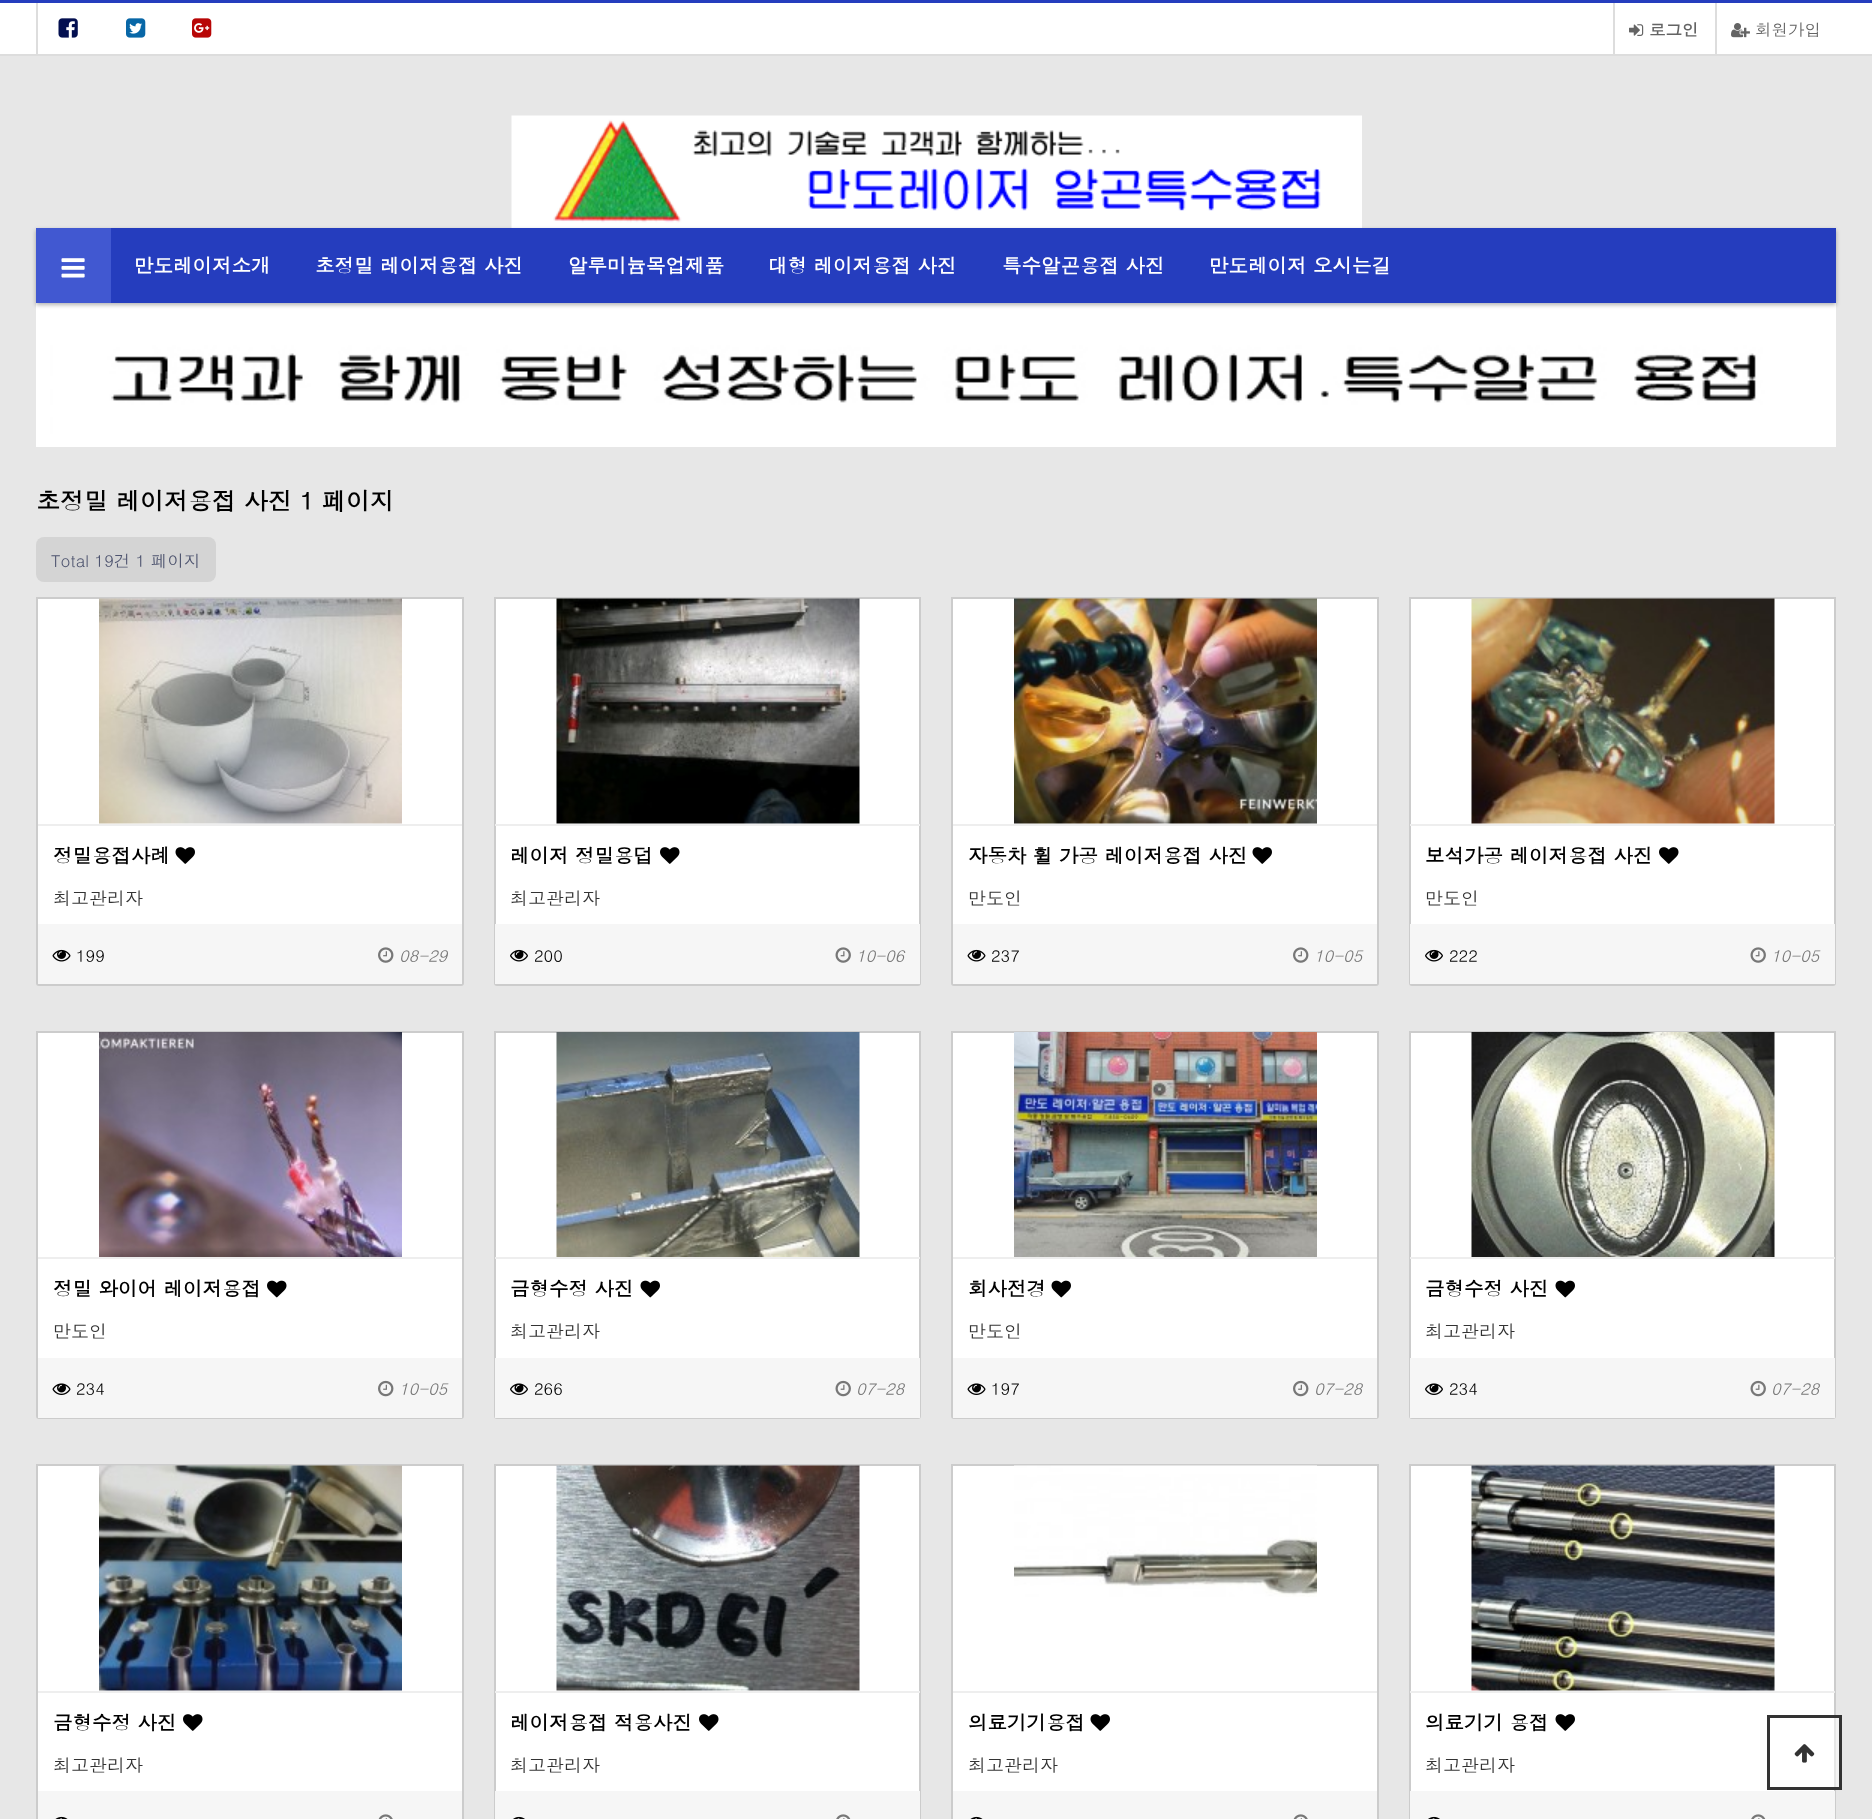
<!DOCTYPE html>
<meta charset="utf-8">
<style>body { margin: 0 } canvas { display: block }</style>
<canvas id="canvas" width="1872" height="1819"></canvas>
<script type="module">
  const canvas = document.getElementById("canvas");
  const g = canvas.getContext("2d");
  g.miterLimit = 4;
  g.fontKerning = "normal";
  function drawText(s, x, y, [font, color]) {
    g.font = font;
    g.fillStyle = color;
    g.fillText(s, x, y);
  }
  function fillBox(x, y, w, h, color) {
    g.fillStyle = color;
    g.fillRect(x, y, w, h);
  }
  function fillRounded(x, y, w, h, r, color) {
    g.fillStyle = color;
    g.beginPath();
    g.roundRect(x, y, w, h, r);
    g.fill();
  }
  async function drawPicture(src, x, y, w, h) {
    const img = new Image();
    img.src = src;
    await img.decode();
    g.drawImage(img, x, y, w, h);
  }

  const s1 = ["bold 16.5px Dotum", "#646464"];
  const s2 = ["16.5px Dotum", "#646464"];
  const s3 = ["bold 19.5px Dotum", "#FFFFFF"];
  const s4 = ["bold 24px Dotum", "#000000"];
  const s5 = ["16.5px Dotum", "#4E546F"];
  const s6 = ["bold 19.5px Dotum", "#000000"];
  const s7 = ["18px Dotum", "#333333"];
  const s8 = ["16.5px Dotum", "#000000"];
  const s9 = ["italic 16.5px Dotum", "#777777"];

  fillBox(0, 0, 1872, 1819, "#E7E7E7");
  fillBox(0, 0, 1872, 3, "#253DBE");
  fillBox(0, 3, 1872, 51, "#FFFFFF");
  fillBox(0, 54, 1872, 2, "#DDDDDD");
  fillBox(36, 3, 2, 53, "#DDDDDD");
  await drawPicture("pic1.png", 58, 18, 20, 20);
  await drawPicture("pic2.png", 126, 18, 20, 20);
  await drawPicture("pic3.png", 192, 18, 20, 20);
  fillBox(1613, 3, 2, 53, "#DDDDDD");
  await drawPicture("pic4.png", 1629, 24, 15, 12);
  drawText("로그인", 1649, 36, s1);
  fillBox(1715, 3, 2, 53, "#DDDDDD");
  await drawPicture("pic5.png", 1731, 23, 19, 15);
  drawText("회원가입", 1755, 36, s2);
  await drawPicture("pic6.png", 511, 115, 851, 113);
  await drawPicture("pic8.png", 36, 303, 1800, 144);
  g.fillStyle = "rgba(0, 0, 0, 0.3)";
  g.filter = "blur(2px)";
  g.beginPath();
  g.rect(36, 230, 1800, 75);
  g.fill();
  g.filter = "none";
  fillBox(111, 228, 1725, 75, "#253DBE");
  fillBox(36, 228, 75, 75, "#4158D1");
  await drawPicture("pic7.png", 61, 258, 24, 20);
  drawText("만도레이저소개", 134, 273, s3);
  drawText("초정밀 레이저용접 사진", 315, 273, s3);
  drawText("알루미늄목업제품", 568, 273, s3);
  drawText("대형 레이저용접 사진", 768, 273, s3);
  drawText("특수알곤용접 사진", 1002, 273, s3);
  drawText("만도레이저 오시는길", 1209, 273, s3);
  drawText("초정밀 레이저용접 사진 1 페이지", 36, 510, s4);
  fillRounded(36, 537, 180, 45, 8, "#D4D4D4");
  drawText("Total 19건 1 페이지", 51, 567, s5);
  g.fillStyle = "#FFFFFF";
  g.beginPath();
  g.roundRect(37, 598, 426, 387, [0, 0, 2, 2]);
  g.fill();
  g.strokeStyle = "#CCCCCC";
  g.lineWidth = 2;
  g.stroke();
  fillBox(38, 824, 424, 2, "#EEEEEE");
  await drawPicture("pic9.png", 99, 598, 303, 226);
  drawText("정밀용접사례", 53, 863, s6);
  await drawPicture("pic10.png", 175, 847, 20, 17);
  drawText("최고관리자", 53, 905, s7);
  fillBox(38, 924, 424, 60, "#F6F6F6");
  await drawPicture("pic11.png", 52, 949, 19, 13);
  drawText("199", 76, 962, s8);
  await drawPicture("pic12.png", 378, 947, 16, 16);
  drawText("08-29", 399, 962, s9);
  g.fillStyle = "#FFFFFF";
  g.beginPath();
  g.roundRect(495, 598, 425, 387, [0, 0, 2, 2]);
  g.fill();
  g.stroke();
  fillBox(495, 824, 425, 2, "#EEEEEE");
  await drawPicture("pic13.png", 556, 598, 304, 226);
  drawText("레이저 정밀용덥", 510, 863, s6);
  await drawPicture("pic14.png", 660, 847, 20, 17);
  drawText("최고관리자", 510, 905, s7);
  fillBox(495, 924, 425, 60, "#F6F6F6");
  await drawPicture("pic15.png", 510, 949, 18, 13);
  drawText("200", 534, 962, s8);
  await drawPicture("pic16.png", 835, 947, 16, 16);
  drawText("10-06", 856, 962, s9);
  g.fillStyle = "#FFFFFF";
  g.beginPath();
  g.roundRect(952, 598, 426, 387, [0, 0, 2, 2]);
  g.fill();
  g.stroke();
  fillBox(953, 824, 424, 2, "#EEEEEE");
  await drawPicture("pic17.png", 1014, 598, 303, 226);
  drawText("자동차 휠 가공 레이저용접 사진", 968, 863, s6);
  await drawPicture("pic10.png", 1252, 847, 20, 17);
  drawText("만도인", 968, 905, s7);
  fillBox(953, 924, 424, 60, "#F6F6F6");
  await drawPicture("pic11.png", 967, 949, 19, 13);
  drawText("237", 991, 962, s8);
  await drawPicture("pic12.png", 1293, 947, 16, 16);
  drawText("10-05", 1314, 962, s9);
  g.fillStyle = "#FFFFFF";
  g.beginPath();
  g.roundRect(1410, 598, 425, 387, [0, 0, 2, 2]);
  g.fill();
  g.stroke();
  fillBox(1410, 824, 425, 2, "#EEEEEE");
  await drawPicture("pic18.png", 1471, 598, 304, 226);
  drawText("보석가공 레이저용접 사진", 1425, 863, s6);
  await drawPicture("pic14.png", 1659, 847, 20, 17);
  drawText("만도인", 1425, 905, s7);
  fillBox(1410, 924, 425, 60, "#F6F6F6");
  await drawPicture("pic15.png", 1425, 949, 18, 13);
  drawText("222", 1449, 962, s8);
  await drawPicture("pic16.png", 1750, 947, 16, 16);
  drawText("10-05", 1771, 962, s9);
  g.fillStyle = "#FFFFFF";
  g.beginPath();
  g.roundRect(37, 1032, 426, 386, [0, 0, 2, 2]);
  g.fill();
  g.stroke();
  fillBox(38, 1257, 424, 2, "#EEEEEE");
  await drawPicture("pic19.png", 99, 1032, 303, 225);
  drawText("정밀 와이어 레이저용접", 53, 1296, s6);
  await drawPicture("pic20.png", 267, 1280, 20, 18);
  drawText("만도인", 53, 1338, s7);
  fillBox(38, 1358, 424, 60, "#F6F6F6");
  await drawPicture("pic21.png", 52, 1383, 19, 12);
  drawText("234", 76, 1395, s8);
  await drawPicture("pic22.png", 378, 1380, 16, 17);
  drawText("10-05", 399, 1395, s9);
  g.fillStyle = "#FFFFFF";
  g.beginPath();
  g.roundRect(495, 1032, 425, 386, [0, 0, 2, 2]);
  g.fill();
  g.stroke();
  fillBox(495, 1257, 425, 2, "#EEEEEE");
  await drawPicture("pic23.png", 556, 1032, 304, 225);
  drawText("금형수정 사진", 510, 1296, s6);
  await drawPicture("pic24.png", 640, 1280, 20, 18);
  drawText("최고관리자", 510, 1338, s7);
  fillBox(495, 1358, 425, 60, "#F6F6F6");
  await drawPicture("pic25.png", 510, 1383, 18, 12);
  drawText("266", 534, 1395, s8);
  await drawPicture("pic26.png", 835, 1380, 16, 17);
  drawText("07-28", 856, 1395, s9);
  g.fillStyle = "#FFFFFF";
  g.beginPath();
  g.roundRect(952, 1032, 426, 386, [0, 0, 2, 2]);
  g.fill();
  g.stroke();
  fillBox(953, 1257, 424, 2, "#EEEEEE");
  await drawPicture("pic27.png", 1014, 1032, 303, 225);
  drawText("회사전경", 968, 1296, s6);
  await drawPicture("pic24.png", 1051, 1280, 20, 18);
  drawText("만도인", 968, 1338, s7);
  fillBox(953, 1358, 424, 60, "#F6F6F6");
  await drawPicture("pic21.png", 967, 1383, 19, 12);
  drawText("197", 991, 1395, s8);
  await drawPicture("pic22.png", 1293, 1380, 16, 17);
  drawText("07-28", 1314, 1395, s9);
  g.fillStyle = "#FFFFFF";
  g.beginPath();
  g.roundRect(1410, 1032, 425, 386, [0, 0, 2, 2]);
  g.fill();
  g.stroke();
  fillBox(1410, 1257, 425, 2, "#EEEEEE");
  await drawPicture("pic28.png", 1471, 1032, 304, 225);
  drawText("금형수정 사진", 1425, 1296, s6);
  await drawPicture("pic24.png", 1555, 1280, 20, 18);
  drawText("최고관리자", 1425, 1338, s7);
  fillBox(1410, 1358, 425, 60, "#F6F6F6");
  await drawPicture("pic25.png", 1425, 1383, 18, 12);
  drawText("234", 1449, 1395, s8);
  await drawPicture("pic26.png", 1750, 1380, 16, 17);
  drawText("07-28", 1771, 1395, s9);
  fillBox(38, 1466, 424, 325, "#FFFFFF");
  g.strokeRect(37, 1465, 426, 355);
  fillBox(38, 1691, 424, 2, "#EEEEEE");
  await drawPicture("pic29.png", 99, 1465, 303, 226);
  drawText("금형수정 사진", 53, 1730, s6);
  await drawPicture("pic14.png", 183, 1714, 20, 17);
  drawText("최고관리자", 53, 1772, s7);
  fillBox(38, 1791, 424, 28, "#F6F6F6");
  await drawPicture("pic30.png", 55, 1816, 13, 3);
  await drawPicture("pic31.png", 378, 1814, 15, 5);
  fillBox(496, 1466, 423, 325, "#FFFFFF");
  g.strokeRect(495, 1465, 425, 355);
  fillBox(495, 1691, 425, 2, "#EEEEEE");
  await drawPicture("pic32.png", 556, 1465, 304, 226);
  drawText("레이저용접 적용사진", 510, 1730, s6);
  await drawPicture("pic14.png", 699, 1714, 20, 17);
  drawText("최고관리자", 510, 1772, s7);
  fillBox(495, 1791, 425, 28, "#F6F6F6");
  await drawPicture("pic33.png", 513, 1816, 12, 3);
  await drawPicture("pic34.png", 836, 1814, 15, 5);
  fillBox(953, 1466, 424, 325, "#FFFFFF");
  g.strokeRect(952, 1465, 426, 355);
  fillBox(953, 1691, 424, 2, "#EEEEEE");
  await drawPicture("pic35.png", 1014, 1465, 303, 132);
  drawText("의료기기용접", 968, 1730, s6);
  await drawPicture("pic10.png", 1090, 1714, 20, 17);
  drawText("최고관리자", 968, 1772, s7);
  fillBox(953, 1791, 424, 28, "#F6F6F6");
  await drawPicture("pic30.png", 970, 1816, 13, 3);
  await drawPicture("pic31.png", 1293, 1814, 15, 5);
  fillBox(1411, 1466, 423, 325, "#FFFFFF");
  g.strokeRect(1410, 1465, 425, 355);
  fillBox(1410, 1691, 425, 2, "#EEEEEE");
  await drawPicture("pic36.png", 1471, 1465, 304, 226);
  drawText("의료기기 용접", 1425, 1730, s6);
  await drawPicture("pic10.png", 1555, 1714, 20, 17);
  drawText("최고관리자", 1425, 1772, s7);
  fillBox(1410, 1791, 425, 28, "#F6F6F6");
  await drawPicture("pic33.png", 1428, 1816, 12, 3);
  await drawPicture("pic34.png", 1751, 1814, 15, 5);
  fillBox(1834, 1718, 5, 69, "rgba(255, 255, 255, 0.5)");
  g.strokeStyle = "#333333";
  g.lineWidth = 3;
  g.strokeRect(1768.5, 1716.5, 72, 72);
  await drawPicture("pic37.png", 1794, 1744, 21, 19);
</script>
